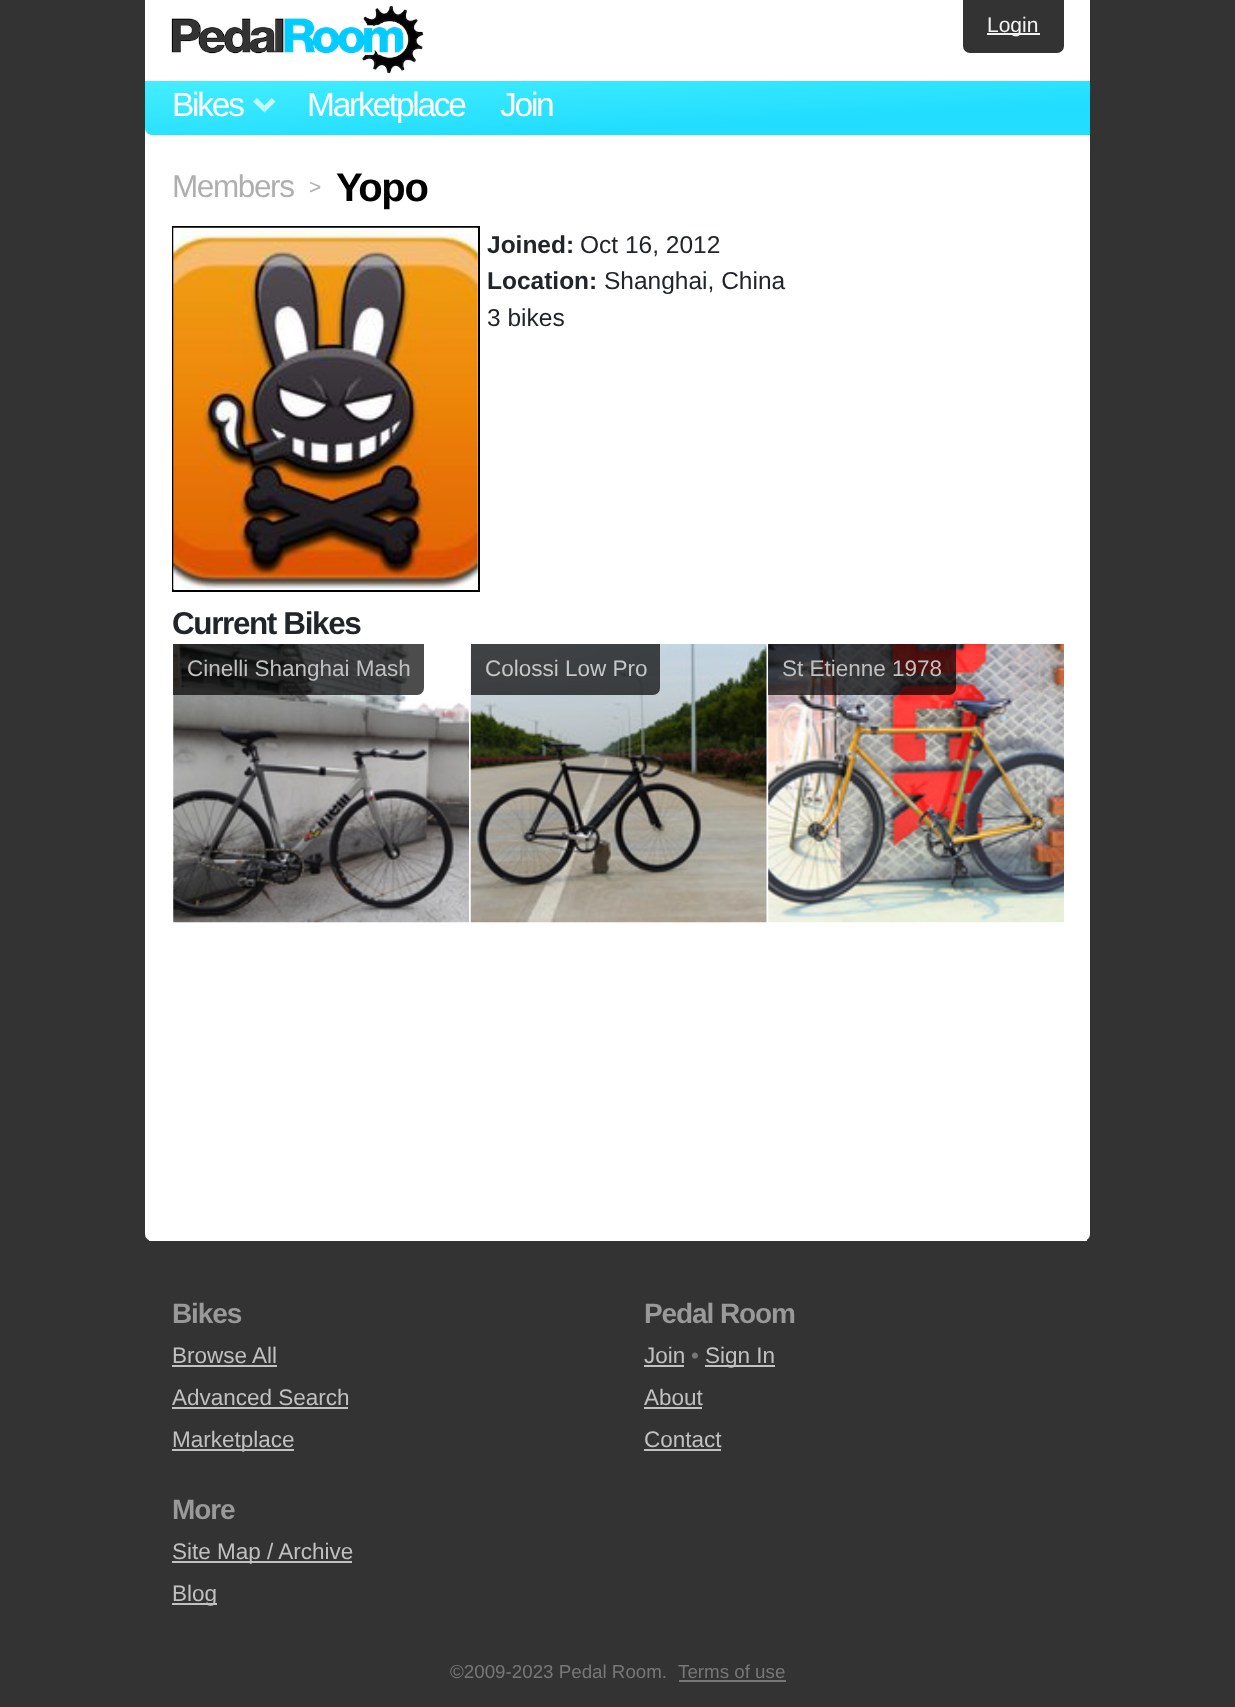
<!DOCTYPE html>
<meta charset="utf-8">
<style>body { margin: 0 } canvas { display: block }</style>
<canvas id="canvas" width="1235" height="1707"></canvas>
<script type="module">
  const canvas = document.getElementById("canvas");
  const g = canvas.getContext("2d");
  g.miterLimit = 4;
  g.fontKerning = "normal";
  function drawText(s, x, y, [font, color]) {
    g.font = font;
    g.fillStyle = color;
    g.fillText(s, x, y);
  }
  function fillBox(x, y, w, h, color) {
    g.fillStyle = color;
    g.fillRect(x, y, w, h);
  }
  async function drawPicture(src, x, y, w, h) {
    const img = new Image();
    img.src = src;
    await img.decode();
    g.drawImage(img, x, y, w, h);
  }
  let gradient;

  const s1 = ["21px Liberation Sans", "#F2F2F2"];
  const s2 = ["33.5px Liberation Sans", "#FFFFFF"];
  const s3 = ["31.5px Liberation Sans", "#AFAFAF"];
  const s4 = ["21px Liberation Sans", "#AFAFAF"];
  const s5 = ["bold 40px Liberation Sans", "#000000"];
  const s6 = ["bold 24.5px Liberation Sans", "#212529"];
  const s7 = ["24.5px Liberation Sans", "#212529"];
  const s8 = ["bold 31.5px Liberation Sans", "#212529"];
  const s9 = ["22.5px Liberation Sans", "#C0C0C0"];
  const s10 = ["22.5px Liberation Sans", "#C5C6C6"];
  const s11 = ["bold 28px Liberation Sans", "#999999"];
  const s12 = ["22.5px Liberation Sans", "#777777"];
  const s13 = ["18.75px Liberation Sans", "#777777"];

  fillBox(0, 0, 1235, 1707, "#333333");
  fillBox(145, 0, 945, 158, "#FFFFFF");
  await drawPicture("pic1.png", 171, 6, 253, 68);
  g.fillStyle = "#333333";
  g.beginPath();
  g.roundRect(963, 0, 101, 53, [0, 0, 7, 7]);
  g.fill();
  fillBox(987, 33, 53, 2, "#F2F2F2");
  drawText("Login", 987, 32, s1);
  gradient = g.createLinearGradient(615, 54, 621, 162);
  gradient.addColorStop(0, "#44EEFF");
  gradient.addColorStop(0.7, "#22DDFF");
  g.fillStyle = gradient;
  g.beginPath();
  g.roundRect(145, 81, 945, 54, [0, 0, 0, 7]);
  g.fill();
  g.letterSpacing = "-2.25px";
  drawText("Bikes", 172, 116, s2);
  g.fillStyle = "rgba(255, 255, 255, 0.7)";
  g.beginPath();
  g.moveTo(275.5, 101.5);
  g.lineTo(264.5, 112.5);
  g.lineTo(264.5, 105.5);
  g.lineTo(271.5, 98);
  g.closePath();
  g.fill();
  g.beginPath();
  g.moveTo(264.5, 112.5);
  g.lineTo(253, 101.5);
  g.lineTo(257, 98);
  g.lineTo(264.5, 105.5);
  g.closePath();
  g.fill();
  drawText("Marketplace", 307, 116, s2);
  drawText("Join", 500, 116, s2);
  g.beginPath();
  g.roundRect(145, 158, 945, 1083, [0, 0, 7, 7]);
  g.fill();
  fillBox(149, 1239, 938, 2, "#FFFFFF");
  g.letterSpacing = "-1.4px";
  drawText("Members", 172, 197, s3);
  drawText(">", 309, 194, s4);
  drawText("Yopo", 336, 201, s5);
  g.strokeStyle = "#000000";
  g.lineWidth = 2;
  g.strokeRect(173, 227, 306, 364);
  await drawPicture("pic2.png", 173, 227, 305, 363);
  g.letterSpacing = "0px";
  drawText("Joined:", 487, 253, s6);
  drawText("Oct 16, 2012", 580, 253, s7);
  drawText("Location:", 487, 289, s6);
  drawText("Shanghai, China", 604, 289, s7);
  drawText("3 bikes", 487, 326, s7);
  g.letterSpacing = "-1.4px";
  drawText("Current Bikes", 172, 634, s8);
  await drawPicture("pic3.png", 173, 644, 296, 279);
  g.fillStyle = "rgba(0, 0, 0, 0.7)";
  g.beginPath();
  g.roundRect(173, 644, 251, 51, [0, 0, 7, 0]);
  g.fill();
  g.letterSpacing = "0px";
  drawText("Cinelli Shanghai Mash", 187, 676, s9);
  await drawPicture("pic4.png", 470, 644, 297, 279);
  g.fillStyle = "rgba(0, 0, 0, 0.7)";
  g.beginPath();
  g.roundRect(471, 644, 189, 51, [0, 0, 7, 0]);
  g.fill();
  drawText("Colossi Low Pro", 485, 676, s10);
  await drawPicture("pic5.png", 768, 644, 296, 279);
  g.fillStyle = "rgba(0, 0, 0, 0.7)";
  g.beginPath();
  g.roundRect(768, 644, 188, 51, [0, 0, 7, 0]);
  g.fill();
  drawText("St Etienne 1978", 782, 676, s9);
  g.letterSpacing = "-1.1px";
  drawText("Bikes", 172, 1323, s11);
  g.letterSpacing = "0px";
  drawText("Browse All", 172, 1363, s9);
  fillBox(172, 1365, 105, 2, "#C2C2C2");
  drawText("Advanced Search", 172, 1405, s9);
  fillBox(172, 1407, 176, 2, "#C2C2C2");
  fillBox(172, 1449, 122, 2, "#C2C2C2");
  drawText("Marketplace", 172, 1447, s9);
  g.letterSpacing = "-1.1px";
  drawText("Pedal Room", 644, 1323, s11);
  g.letterSpacing = "0px";
  drawText("Join", 644, 1363, s9);
  fillBox(644, 1365, 40, 2, "#C2C2C2");
  drawText("•", 691, 1363, s12);
  fillBox(705, 1365, 70, 2, "#C2C2C2");
  drawText("Sign In", 705, 1363, s9);
  drawText("About", 644, 1405, s9);
  fillBox(644, 1407, 58, 2, "#C2C2C2");
  drawText("Contact", 644, 1447, s9);
  fillBox(644, 1449, 77, 2, "#C2C2C2");
  g.letterSpacing = "-1.1px";
  drawText("More", 172, 1519, s11);
  fillBox(172, 1561, 180, 2, "#C2C2C2");
  g.letterSpacing = "0px";
  drawText("Site Map / Archive", 172, 1559, s9);
  fillBox(172, 1603, 45, 2, "#C2C2C2");
  drawText("Blog", 172, 1601, s9);
  drawText("©2009-2023 Pedal Room.", 450, 1678, s13);
  drawText("Terms of use", 678, 1678, s13);
  fillBox(679, 1680, 107, 2, "#777777");
</script>
